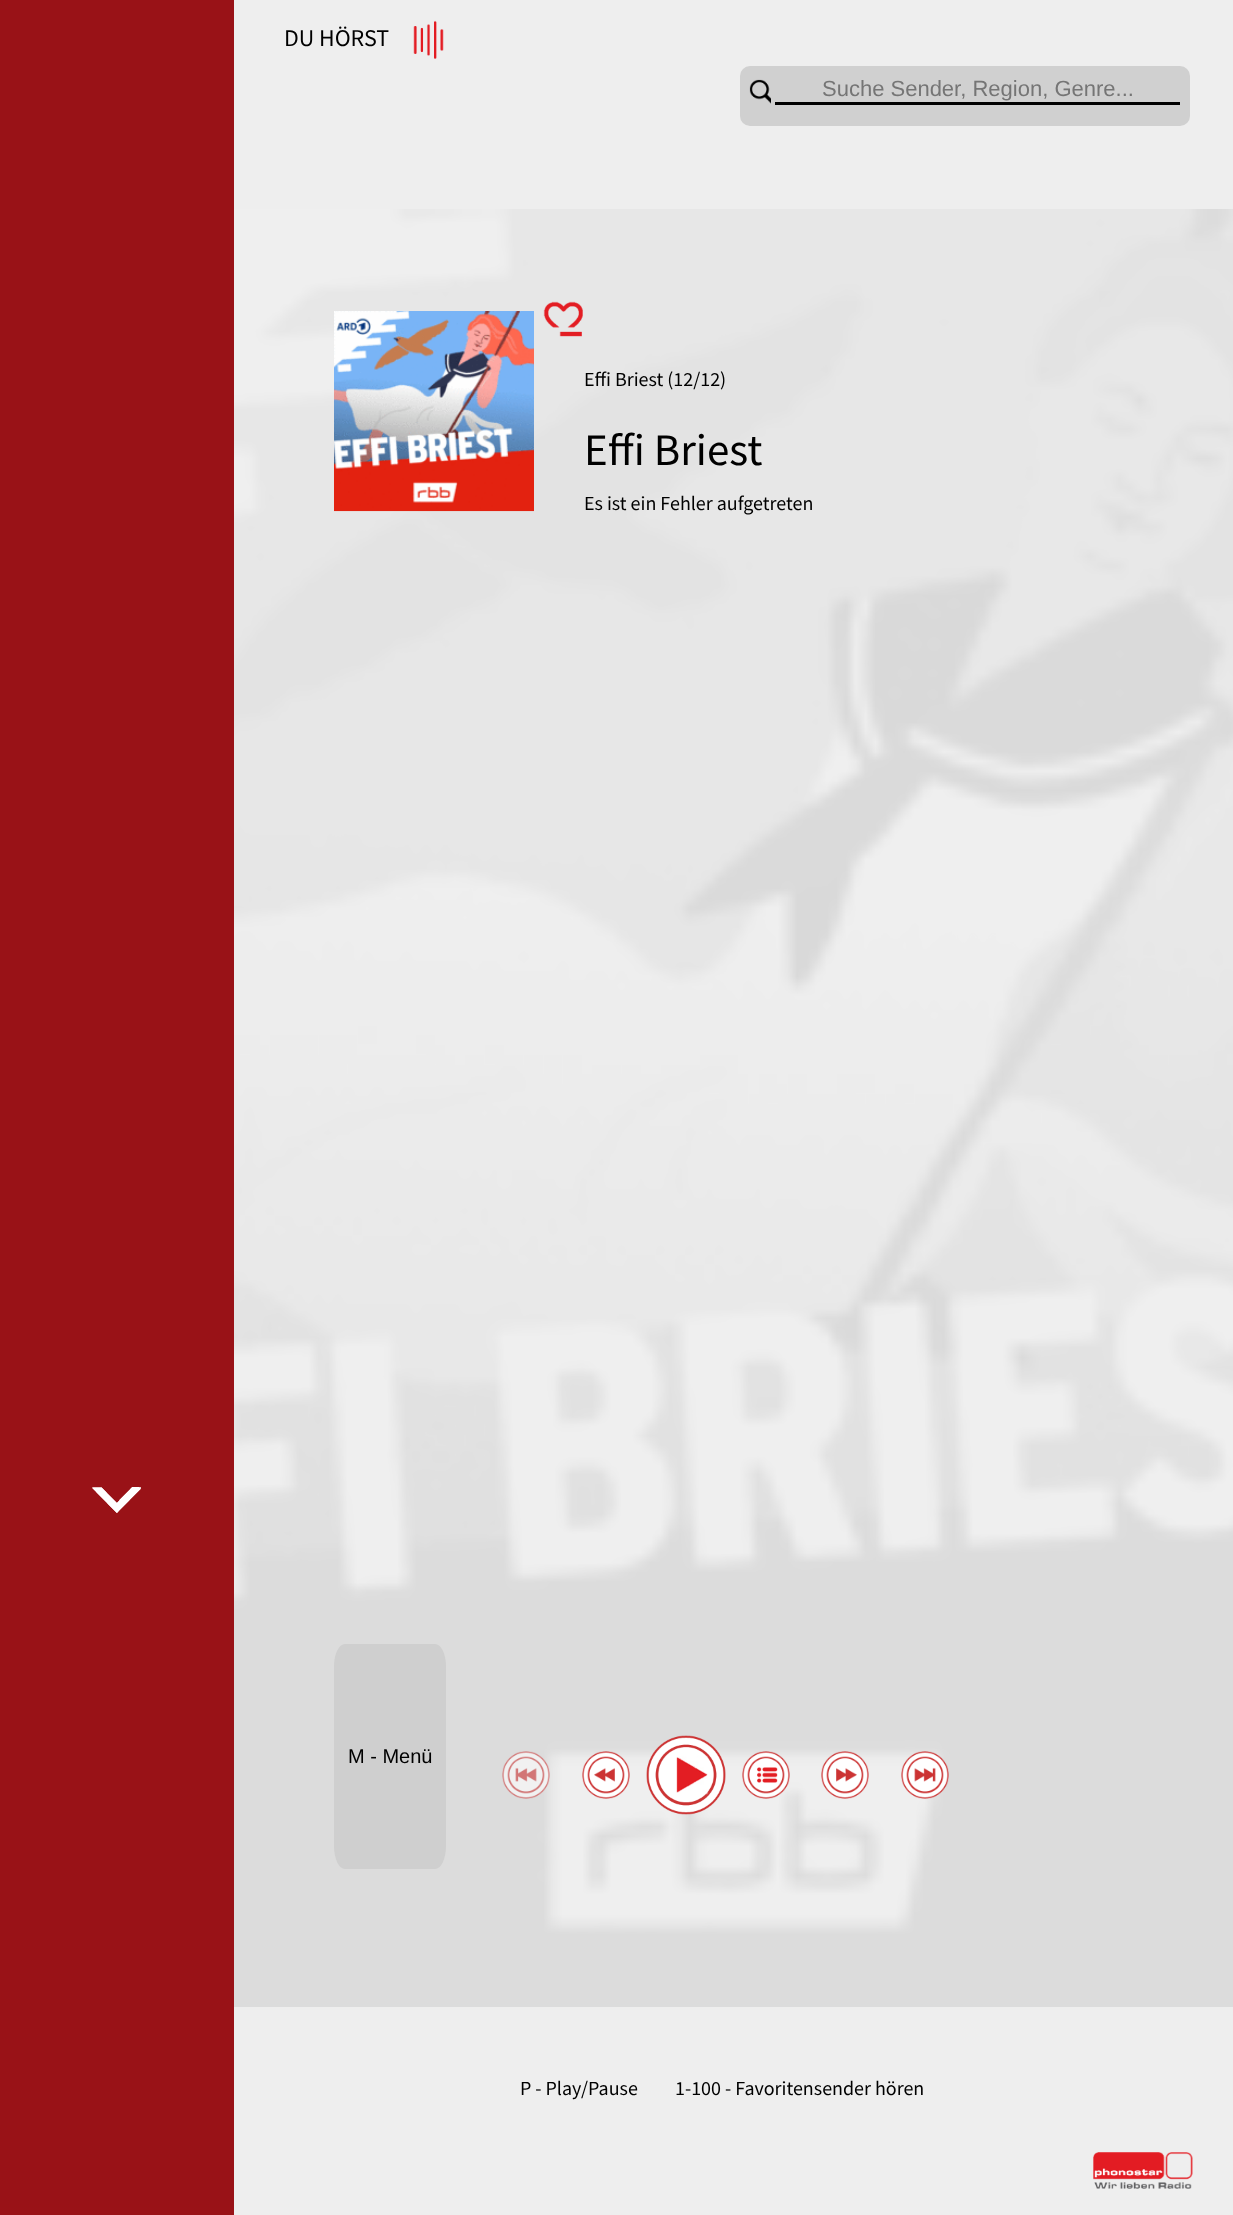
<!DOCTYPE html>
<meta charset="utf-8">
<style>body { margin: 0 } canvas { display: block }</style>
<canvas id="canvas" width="1233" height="2215"></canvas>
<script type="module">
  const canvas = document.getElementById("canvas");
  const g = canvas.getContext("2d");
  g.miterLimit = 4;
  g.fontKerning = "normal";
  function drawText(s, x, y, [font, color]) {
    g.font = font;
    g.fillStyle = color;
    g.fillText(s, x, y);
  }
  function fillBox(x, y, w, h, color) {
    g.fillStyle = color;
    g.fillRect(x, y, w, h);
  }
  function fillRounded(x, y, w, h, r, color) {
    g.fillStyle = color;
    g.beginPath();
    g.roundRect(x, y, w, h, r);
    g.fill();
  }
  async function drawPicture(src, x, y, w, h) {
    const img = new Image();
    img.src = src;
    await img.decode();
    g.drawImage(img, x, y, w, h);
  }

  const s1 = ["24px Source Sans Pro", "#000000"];
  const s2 = ["22px Liberation Sans", "#757575"];
  const s3 = ["20px Source Sans Pro", "#000000"];
  const s4 = ["45px Source Sans Pro", "#000000"];
  const s5 = ["20px Liberation Sans", "#000000"];

  fillBox(0, 0, 1233, 2215, "#EEEEEE");
  fillBox(0, 0, 234, 2215, "#991217");
  await drawPicture("pic1.png", 92, 1487, 49, 26);
  drawText("DU HÖRST", 284, 46, s1);
  await drawPicture("pic2.png", 413, 20, 31, 39);
  fillRounded(740, 66, 450, 60, 10, "#D0D0D0");
  await drawPicture("pic3.png", 749, 79, 22, 25);
  fillBox(775, 102, 405, 3, "#000000");
  drawText("Suche Sender, Region, Genre...", 822, 96, s2);
  await drawPicture("pic12.png", 234, 209, 999, 1798);
  await drawPicture("pic4.png", 334, 311, 200, 201);
  await drawPicture("pic5.png", 543, 301, 40, 36);
  drawText("Effi Briest (12/12)", 584, 386, s3);
  drawText("Effi Briest", 584, 465, s4);
  drawText("Es ist ein Fehler aufgetreten", 584, 510, s3);
  g.fillStyle = "#CFCFCF";
  g.beginPath();
  g.moveTo(345, 1644);
  g.lineTo(435, 1644);
  g.bezierCurveTo(441, 1644, 446, 1654, 446, 1666);
  g.lineTo(446, 1846);
  g.bezierCurveTo(446, 1859, 441, 1869, 435, 1869);
  g.lineTo(345, 1869);
  g.bezierCurveTo(339, 1869, 334, 1859, 334, 1846);
  g.lineTo(334, 1666);
  g.bezierCurveTo(334, 1654, 339, 1644, 345, 1644);
  g.closePath();
  g.fill();
  drawText("M - Menü", 348, 1763, s5);
  await drawPicture("pic6.png", 502, 1751, 48, 48);
  await drawPicture("pic7.png", 582, 1751, 48, 48);
  await drawPicture("pic8.png", 646, 1735, 80, 80);
  await drawPicture("pic9.png", 742, 1751, 48, 48);
  await drawPicture("pic10.png", 821, 1751, 48, 48);
  await drawPicture("pic11.png", 901, 1751, 48, 48);
  drawText("P - Play/Pause", 520, 2095, s3);
  drawText("1-100 - Favoritensender hören", 675, 2095, s3);
  await drawPicture("pic13.png", 1093, 2152, 100, 37);
</script>
